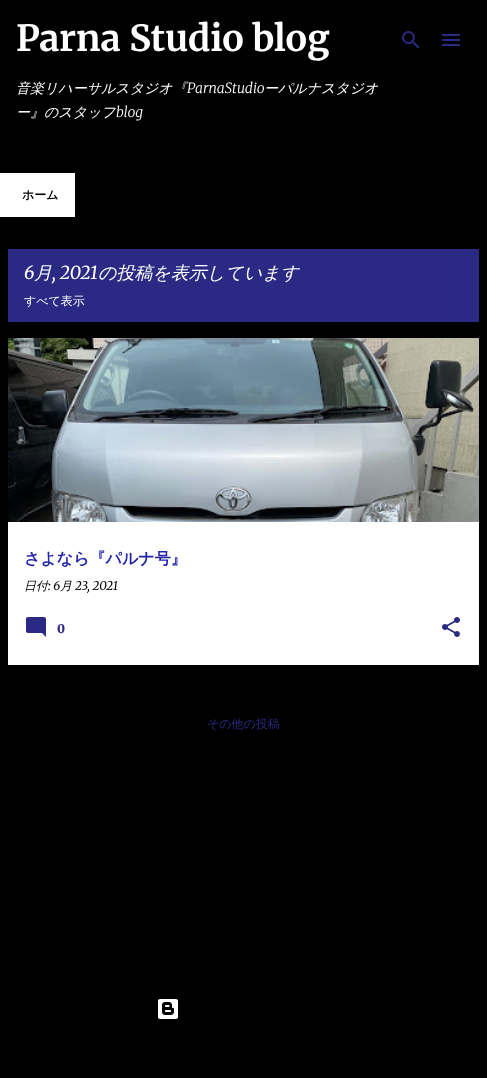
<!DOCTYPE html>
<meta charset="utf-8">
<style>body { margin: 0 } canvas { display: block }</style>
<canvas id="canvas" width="487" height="1078"></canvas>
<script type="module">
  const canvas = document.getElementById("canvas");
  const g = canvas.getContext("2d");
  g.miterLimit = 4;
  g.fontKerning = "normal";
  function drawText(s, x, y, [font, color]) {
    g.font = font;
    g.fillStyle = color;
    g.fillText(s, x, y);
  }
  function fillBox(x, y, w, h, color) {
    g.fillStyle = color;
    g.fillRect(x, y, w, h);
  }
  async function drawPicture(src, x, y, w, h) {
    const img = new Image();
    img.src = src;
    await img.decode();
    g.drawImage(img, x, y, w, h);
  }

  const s1 = ["bold 36px Merriweather", "#FFFFFF"];
  const s2 = ["italic 500 14px WenQuanYi Zen Hei", "#FFFFFF"];
  const s3 = ["italic 300 14px Merriweather", "#FFFFFF"];
  const s4 = ["bold 12px WenQuanYi Zen Hei", "#000000"];
  const s5 = ["italic 18px Merriweather", "#FFFFFF"];
  const s6 = ["italic 500 18px WenQuanYi Zen Hei", "#FFFFFF"];
  const s7 = ["500 12px WenQuanYi Zen Hei", "#FFFFFF"];
  const s8 = ["bold 16px WenQuanYi Zen Hei", "#2121AA"];
  const s9 = ["italic 500 12px WenQuanYi Zen Hei", "#000000"];
  const s10 = ["italic 12px Merriweather", "#000000"];
  const s11 = ["900 12px Merriweather", "#2A2A85"];
  const s12 = ["500 12px WenQuanYi Zen Hei", "#2A2A85"];

  fillBox(0, 0, 487, 1078, "#000000");
  drawText("Parna Studio blog", 16, 51, s1);
  drawText("音楽リハーサルスタジオ『", 16, 93, s2);
  drawText("ParnaStudio", 187, 93, s3);
  drawText("ーパルナスタジオ", 264, 93, s2);
  drawText("ー』のスタッフ", 16, 117, s2);
  drawText("blog", 116, 117, s3);
  await drawPicture("pic1.png", 402, 31, 18, 18);
  await drawPicture("pic2.png", 442, 34, 18, 12);
  fillBox(0, 173, 75, 44, "#FFFFFF");
  drawText("ホーム", 22, 199, s4);
  fillBox(8, 249, 471, 73, "#2A2A85");
  drawText("6", 24, 279, s5);
  drawText("月", 34, 279, s6);
  drawText(", 2021", 52, 279, s5);
  drawText("の投稿を表示しています", 98, 279, s6);
  drawText("すべて表示", 24, 305, s7);
  fillBox(8, 522, 471, 143, "#FFFFFF");
  await drawPicture("pic3.png", 8, 338, 471, 184);
  drawText("さよなら『パルナ号』", 24, 564, s8);
  drawText("日付", 24, 590, s9);
  drawText(": 6", 48, 590, s10);
  drawText("月", 60, 590, s9);
  drawText("23, 2021", 75, 590, s10);
  await drawPicture("pic4.png", 26, 617, 20, 20);
  drawText("0", 57, 633, s11);
  await drawPicture("pic5.png", 442, 617, 18, 20);
  drawText("その他の投稿", 207, 728, s12);
  await drawPicture("pic6.png", 158, 999, 20, 20);
</script>
